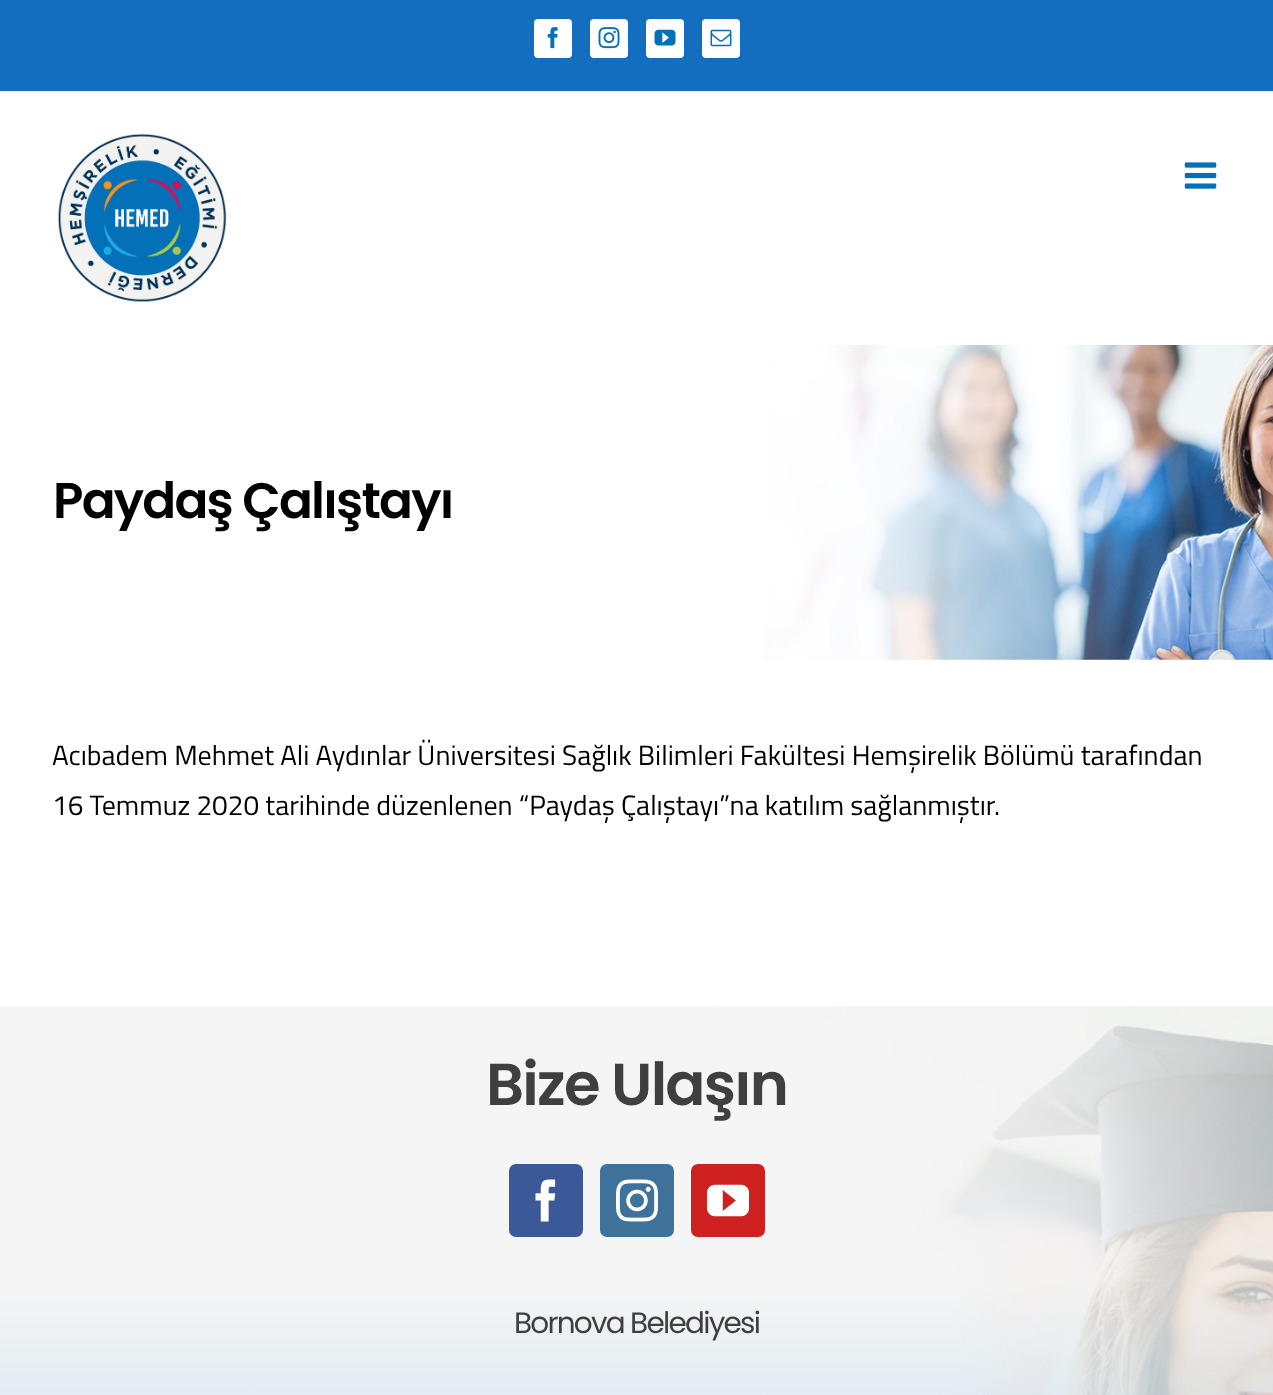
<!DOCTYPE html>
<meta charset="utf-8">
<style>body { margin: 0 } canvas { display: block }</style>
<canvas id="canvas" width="1273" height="1395"></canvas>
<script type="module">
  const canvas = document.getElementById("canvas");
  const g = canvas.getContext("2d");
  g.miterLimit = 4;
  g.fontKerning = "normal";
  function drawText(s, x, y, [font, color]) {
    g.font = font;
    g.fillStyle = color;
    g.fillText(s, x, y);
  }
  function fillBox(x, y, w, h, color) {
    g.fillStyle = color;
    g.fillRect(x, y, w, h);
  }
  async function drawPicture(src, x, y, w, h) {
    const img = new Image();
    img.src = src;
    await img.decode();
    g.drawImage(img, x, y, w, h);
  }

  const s1 = ["600 50px Poppins", "#000000"];
  const s2 = ["28px Titillium Web", "#000000"];
  const s3 = ["600 59.25px Poppins", "#3F3F3F"];
  const s4 = ["29.5px Poppins", "#3F3F3F"];

  fillBox(0, 0, 1273, 1395, "#FFFFFF");
  fillBox(0, 0, 1273, 91, "#136EBF");
  g.fillStyle = "#FFFFFF";
  g.beginPath();
  g.roundRect(535, 20, 36, 37, 3);
  g.fill();
  g.strokeStyle = "#FFFFFF";
  g.lineWidth = 2;
  g.stroke();
  await drawPicture("pic1.png", 547, 27, 11, 22);
  g.beginPath();
  g.roundRect(591, 20, 36, 37, 3);
  g.fill();
  g.stroke();
  await drawPicture("pic2.png", 598, 27, 22, 22);
  g.beginPath();
  g.roundRect(647, 20, 36, 37, 3);
  g.fill();
  g.stroke();
  await drawPicture("pic3.png", 654, 29, 22, 17);
  g.beginPath();
  g.roundRect(703, 20, 36, 37, 3);
  g.fill();
  g.stroke();
  await drawPicture("pic4.png", 710, 29, 22, 18);
  await drawPicture("pic5.png", 58, 134, 169, 168);
  await drawPicture("pic6.png", 1184, 162, 33, 27);
  await drawPicture("pic7.png", 764, 345, 509, 315);
  g.letterSpacing = "-1.75px";
  drawText("Paydaş Çalıştayı", 53, 518, s1);
  g.letterSpacing = "0px";
  drawText("Acıbadem Mehmet Ali Aydınlar Üniversitesi Sağlık Bilimleri Fakültesi Hemşirelik Bölümü tarafından", 52, 765, s2);
  drawText("16 Temmuz 2020 tarihinde düzenlenen “Paydaş Çalıştayı”na katılım sağlanmıştır.", 52, 815, s2);
  await drawPicture("pic8.png", 0, 1006, 1273, 389);
  g.letterSpacing = "-1.75px";
  drawText("Bize Ulaşın", 486, 1105, s3);
  g.fillStyle = "#3B5998";
  g.beginPath();
  g.roundRect(510, 1165, 72, 71, 6);
  g.fill();
  g.strokeStyle = "#3B5998";
  g.stroke();
  await drawPicture("pic9.png", 535, 1179, 21, 43);
  g.fillStyle = "#3F729B";
  g.beginPath();
  g.roundRect(601, 1165, 72, 71, 6);
  g.fill();
  g.strokeStyle = "#3F729B";
  g.stroke();
  await drawPicture("pic10.png", 616, 1179, 42, 43);
  g.fillStyle = "#CD201F";
  g.beginPath();
  g.roundRect(692, 1165, 72, 71, 6);
  g.fill();
  g.strokeStyle = "#CD201F";
  g.stroke();
  await drawPicture("pic11.png", 707, 1184, 42, 33);
  drawText("Bornova Belediyesi", 514, 1333, s4);
</script>
